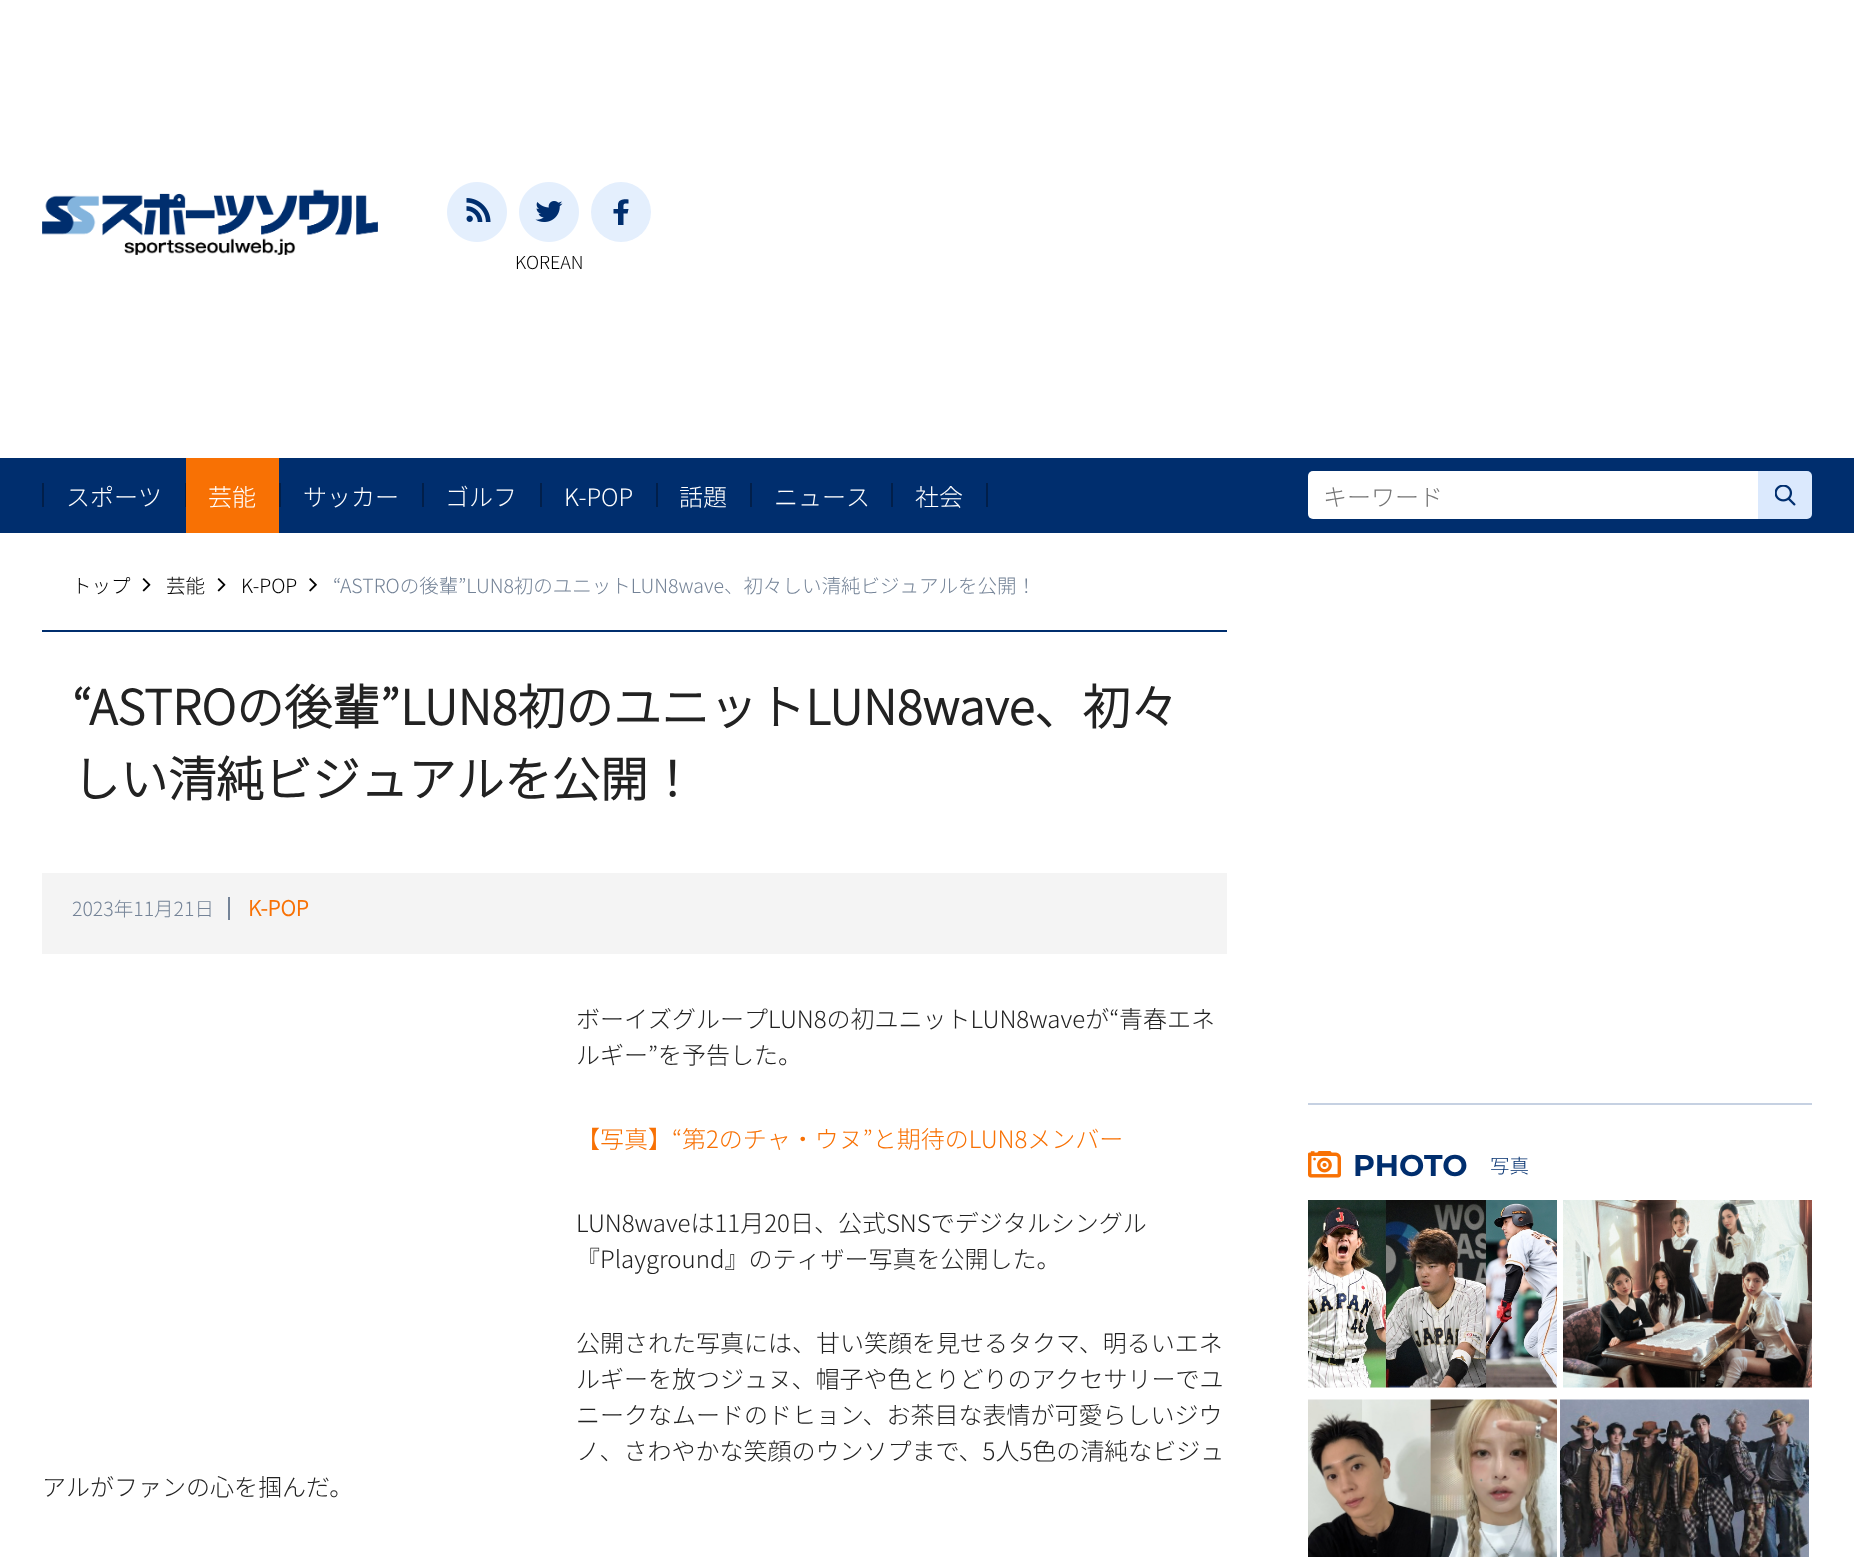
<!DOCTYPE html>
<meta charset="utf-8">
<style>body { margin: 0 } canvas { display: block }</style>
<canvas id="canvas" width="1854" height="1557"></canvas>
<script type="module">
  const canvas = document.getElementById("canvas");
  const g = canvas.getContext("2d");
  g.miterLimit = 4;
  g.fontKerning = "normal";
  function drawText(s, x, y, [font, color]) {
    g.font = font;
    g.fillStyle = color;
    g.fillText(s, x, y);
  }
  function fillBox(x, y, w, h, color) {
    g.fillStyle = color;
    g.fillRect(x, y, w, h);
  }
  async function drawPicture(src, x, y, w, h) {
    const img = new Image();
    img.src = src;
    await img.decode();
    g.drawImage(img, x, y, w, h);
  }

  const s1 = ["300 18px Noto Sans CJK JP", "#000000"];
  const s2 = ["300 24px Noto Sans CJK JP", "#FFFFFF"];
  const s3 = ["300 24px Noto Sans CJK JP", "#757575"];
  const s4 = ["300 19.5px Noto Sans CJK JP", "#000000"];
  const s5 = ["300 19.5px Noto Sans CJK JP", "#748397"];
  const s6 = ["bold 48px Noto Sans CJK JP", "#222222"];
  const s7 = ["bold 21px Noto Sans CJK JP", "#F87104"];
  const s8 = ["300 24px Noto Sans CJK JP", "#222222"];
  const s9 = ["300 24px Noto Sans CJK JP", "#F87104"];
  const s10 = ["bold 30px Montserrat", "#002E6E"];
  const s11 = ["300 19.5px Noto Sans CJK JP", "#002E6E"];

  fillBox(0, 0, 1854, 1557, "#FFFFFF");
  await drawPicture("pic1.png", 42, 189, 336, 66);
  await drawPicture("pic2.png", 447, 182, 60, 60);
  await drawPicture("pic3.png", 519, 182, 60, 60);
  g.fillStyle = "#E4EFFD";
  g.beginPath();
  g.arc(621, 212, 30, 0, Math.PI * 2);
  g.fill();
  g.fillStyle = "#002E6E";
  g.beginPath();
  g.moveTo(623.5, 225);
  g.lineTo(623.5, 213.5);
  g.lineTo(627.5, 213.5);
  g.lineTo(628.5, 209);
  g.lineTo(623.5, 209);
  g.bezierCurveTo(623.5, 203.5, 623, 203.5, 628.5, 203.5);
  g.lineTo(628.5, 199.5);
  g.bezierCurveTo(624.5, 199, 619, 199, 618, 204);
  g.lineTo(618, 209);
  g.lineTo(613.5, 209);
  g.lineTo(613.5, 213.5);
  g.lineTo(618, 213.5);
  g.lineTo(618, 225);
  g.closePath();
  g.fill("evenodd");
  drawText("KOREAN", 515, 269, s1);
  fillBox(0, 458, 1854, 75, "#002E6E");
  fillBox(42, 483, 2, 24, "#011F4A");
  drawText("スポーツ", 66, 506, s2);
  fillBox(185, 483, 1, 24, "#011F4A");
  fillBox(186, 458, 93, 75, "#F87104");
  drawText("芸能", 208, 506, s2);
  fillBox(279, 483, 2, 24, "#011F4A");
  drawText("サッカー", 303, 506, s2);
  fillBox(422, 483, 2, 24, "#011F4A");
  drawText("ゴルフ", 445, 506, s2);
  fillBox(540, 483, 2, 24, "#011F4A");
  drawText("K-POP", 564, 506, s2);
  fillBox(656, 483, 2, 24, "#011F4A");
  drawText("話題", 679, 506, s2);
  fillBox(750, 483, 2, 24, "#011F4A");
  drawText("ニュース", 774, 506, s2);
  fillBox(891, 483, 2, 24, "#011F4A");
  drawText("社会", 915, 506, s2);
  fillBox(986, 483, 2, 24, "#011F4A");
  g.fillStyle = "#FFFFFF";
  g.beginPath();
  g.roundRect(1308, 471, 450, 48, [5, 0, 0, 5]);
  g.fill();
  drawText("キーワード", 1323, 506, s3);
  g.fillStyle = "#DBE9FD";
  g.beginPath();
  g.roundRect(1758, 471, 54, 48, [0, 5, 5, 0]);
  g.fill();
  await drawPicture("pic4.png", 1775, 485, 21, 21);
  drawText("トップ", 72, 593, s4);
  await drawPicture("pic5.png", 142, 578, 9, 14);
  drawText("芸能", 166, 593, s4);
  await drawPicture("pic5.png", 217, 578, 9, 14);
  drawText("K-POP", 241, 593, s4);
  await drawPicture("pic6.png", 309, 578, 8, 14);
  drawText("“ASTROの後輩”LUN8初のユニットLUN8wave、初々しい清純ビジュアルを公開！", 333, 593, s5);
  fillBox(42, 630, 1185, 2, "#002E6E");
  drawText("“ASTROの後輩”LUN8初のユニットLUN8wave、初々", 72, 725, s6);
  drawText("しい清純ビジュアルを公開！", 72, 797, s6);
  fillBox(42, 873, 1185, 81, "#F4F4F4");
  fillBox(228, 897, 2, 23, "#748397");
  drawText("2023年11月21日", 72, 916, s5);
  drawText("K-POP", 248, 916, s7);
  drawText("ボーイズグループLUN8の初ユニットLUN8waveが“青春エネ", 576, 1028, s8);
  drawText("ルギー”を予告した。", 576, 1064, s8);
  drawText("【写真】“第2のチャ・ウヌ”と期待のLUN8メンバー", 576, 1148, s9);
  drawText("LUN8waveは11月20日、公式SNSでデジタルシングル", 576, 1232, s8);
  drawText("『Playground』のティザー写真を公開した。", 576, 1268, s8);
  drawText("公開された写真には、甘い笑顔を見せるタクマ、明るいエネ", 576, 1352, s8);
  drawText("ルギーを放つジュヌ、帽子や色とりどりのアクセサリーでユ", 576, 1388, s8);
  drawText("ニークなムードのドヒョン、お茶目な表情が可愛らしいジウ", 576, 1424, s8);
  drawText("ノ、さわやかな笑顔のウンソプまで、5人5色の清純なビジュ", 576, 1460, s8);
  drawText("アルがファンの心を掴んだ。", 42, 1496, s8);
  fillBox(1308, 1103, 504, 2, "#C6D1E2");
  await drawPicture("pic7.png", 1308, 1151, 33, 27);
  drawText("PHOTO", 1353, 1176, s10);
  drawText("写真", 1490, 1173, s11);
  await drawPicture("pic8.png", 1308, 1200, 249, 188);
  await drawPicture("pic9.png", 1563, 1200, 249, 188);
  await drawPicture("pic10.png", 1308, 1399, 249, 158);
  await drawPicture("pic11.png", 1560, 1399, 249, 158);
</script>
